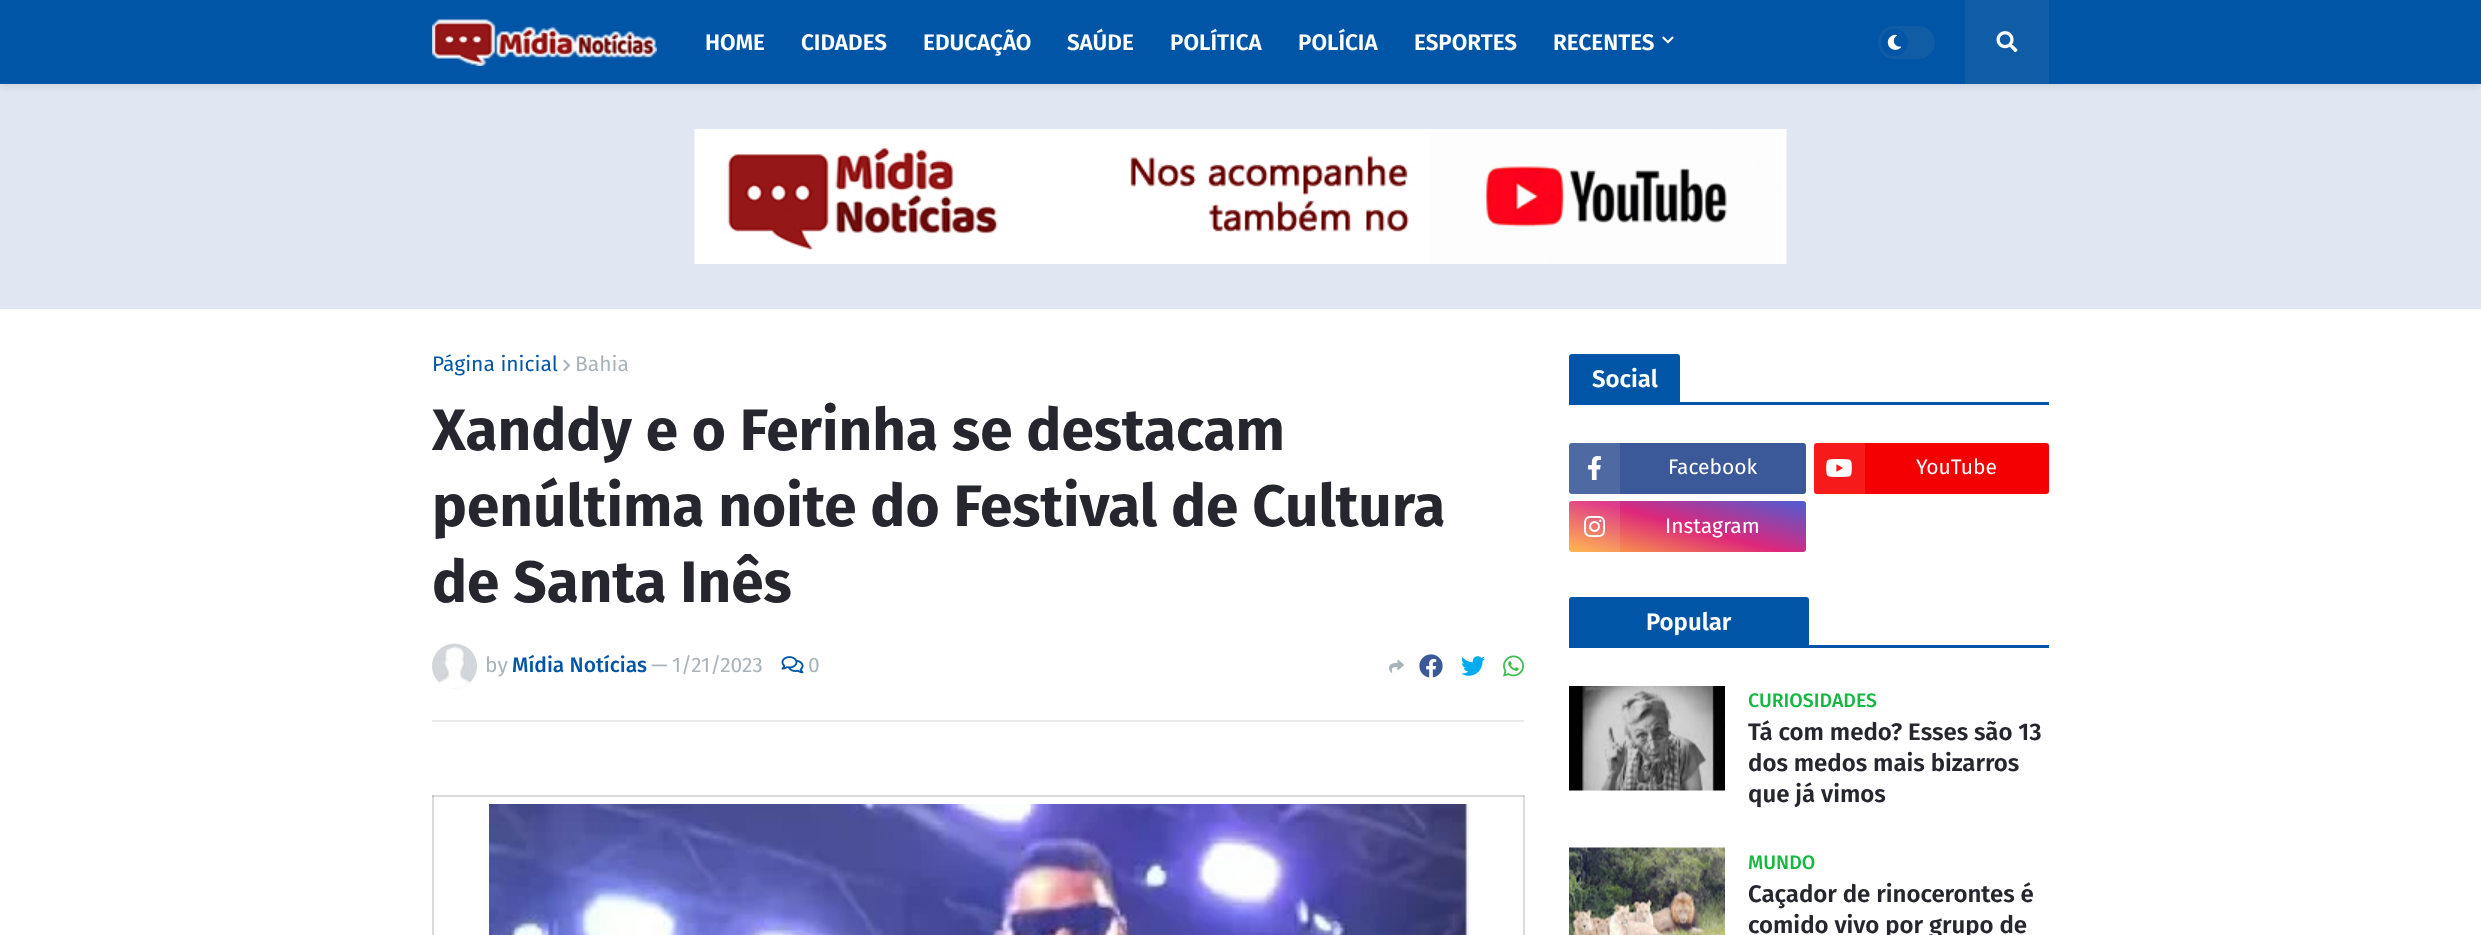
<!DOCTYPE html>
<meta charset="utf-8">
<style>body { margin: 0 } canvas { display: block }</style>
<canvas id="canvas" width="2481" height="935"></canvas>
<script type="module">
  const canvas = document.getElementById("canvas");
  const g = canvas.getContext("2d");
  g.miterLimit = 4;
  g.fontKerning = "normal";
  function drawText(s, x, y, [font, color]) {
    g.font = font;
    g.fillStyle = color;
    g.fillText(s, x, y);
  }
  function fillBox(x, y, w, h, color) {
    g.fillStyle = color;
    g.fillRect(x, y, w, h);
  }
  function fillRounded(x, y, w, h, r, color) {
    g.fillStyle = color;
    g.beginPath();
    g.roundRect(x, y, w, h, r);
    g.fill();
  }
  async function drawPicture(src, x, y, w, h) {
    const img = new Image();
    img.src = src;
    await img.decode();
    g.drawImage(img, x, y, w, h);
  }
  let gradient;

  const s1 = ["600 22.5px Fira Sans", "#FFFFFF"];
  const s2 = ["21px Fira Sans", "#0055A6"];
  const s3 = ["21px Fira Sans", "#A9B4BA"];
  const s4 = ["bold 58.5px Fira Sans", "#25262E"];
  const s5 = ["500 21px Fira Sans", "#0055A6"];
  const s6 = ["600 24px Fira Sans", "#FFFFFF"];
  const s7 = ["21px Fira Sans", "#FFFFFF"];
  const s8 = ["500 19.5px Fira Sans", "#15B842"];
  const s9 = ["600 24px Fira Sans", "#25262E"];

  fillBox(0, 0, 2481, 935, "#FFFFFF");
  fillBox(432, 795, 2, 140, "#DBDBDB");
  fillBox(1523, 795, 2, 140, "#DBDBDB");
  fillBox(0, 84, 2481, 225, "#E1E7F2");
  g.fillStyle = "rgba(0, 0, 0, 0.1)";
  g.filter = "blur(4px)";
  g.beginPath();
  g.rect(0, 2, 2481, 84);
  g.fill();
  g.filter = "none";
  fillBox(0, 0, 2481, 84, "#0055A6");
  await drawPicture("pic1.png", 432, 19, 225, 47);
  drawText("HOME", 705, 50, s1);
  drawText("CIDADES", 801, 50, s1);
  drawText("EDUCAÇÃO", 923, 50, s1);
  drawText("SAÚDE", 1067, 50, s1);
  drawText("POLÍTICA", 1170, 50, s1);
  drawText("POLÍCIA", 1298, 50, s1);
  drawText("ESPORTES", 1414, 50, s1);
  drawText("RECENTES", 1553, 50, s1);
  await drawPicture("pic2.png", 1662, 36, 12, 8);
  fillRounded(1878, 26, 57, 33, 16.5, "#105CA5");
  g.fillStyle = "#0055A6";
  g.beginPath();
  g.arc(1894.5, 42.5, 13.5, 0, Math.PI * 2);
  g.fill();
  await drawPicture("pic3.png", 1887, 34, 15, 16);
  fillBox(1965, 0, 84, 84, "#105CA5");
  await drawPicture("pic4.png", 1996, 31, 22, 22);
  await drawPicture("pic5.png", 694, 129, 1093, 135);
  fillBox(432, 720, 1092, 2, "#EBEBEB");
  drawText("Página inicial", 432, 371, s2);
  await drawPicture("pic6.png", 563, 359, 8, 13);
  drawText("Bahia", 575, 371, s3);
  drawText("Xanddy e o Ferinha se destacam", 432, 450, s4);
  drawText("penúltima noite do Festival de Cultura", 432, 526, s4);
  drawText("de Santa Inês", 432, 602, s4);
  g.fillStyle = "#F7F7F7";
  g.beginPath();
  g.arc(454.5, 666.5, 22.5, 0, Math.PI * 2);
  g.fill();
  await drawPicture("pic7.png", 432, 643, 45, 45);
  drawText("by", 485, 672, s3);
  drawText("Mídia Notícias", 512, 672, s5);
  drawText("—", 651, 672, s3);
  drawText("1/21/2023", 672, 672, s3);
  await drawPicture("pic8.png", 781, 656, 23, 18);
  drawText("0", 808, 672, s3);
  await drawPicture("pic9.png", 1389, 659, 15, 14);
  await drawPicture("pic10.png", 1419, 654, 24, 24);
  await drawPicture("pic11.png", 1461, 656, 24, 20);
  await drawPicture("pic12.png", 1503, 655, 21, 22);
  fillBox(432, 795, 1092, 2, "#DBDBDB");
  fillBox(432, 795, 2, 2, "#C4C4C4");
  fillBox(1523, 795, 1, 2, "#C4C4C4");
  await drawPicture("pic13.png", 489, 804, 980, 131);
  fillBox(1680, 402, 369, 3, "#0055A6");
  g.beginPath();
  g.roundRect(1569, 354, 111, 51, [3, 3, 0, 0]);
  g.fill();
  drawText("Social", 1592, 387, s6);
  fillRounded(1569, 443, 237, 51, 3, "#3B5999");
  g.fillStyle = "rgba(255, 255, 255, 0.1)";
  g.beginPath();
  g.roundRect(1569, 443, 51, 51, [3, 0, 0, 3]);
  g.fill();
  await drawPicture("pic14.png", 1588, 456, 13, 24);
  drawText("Facebook", 1668, 474, s7);
  fillRounded(1814, 443, 235, 51, 3, "#F50000");
  g.fillStyle = "rgba(255, 255, 255, 0.1)";
  g.beginPath();
  g.roundRect(1814, 443, 51, 51, [3, 0, 0, 3]);
  g.fill();
  await drawPicture("pic15.png", 1826, 459, 26, 18);
  drawText("YouTube", 1916, 474, s7);
  gradient = g.createLinearGradient(1673, 580, 1702, 473);
  gradient.addColorStop(0, "#FFB13D");
  gradient.addColorStop(0.5, "#DD277B");
  gradient.addColorStop(1, "#4D5ED4");
  g.fillStyle = gradient;
  g.beginPath();
  g.roundRect(1569, 501, 237, 51, 3);
  g.fill();
  g.fillStyle = "rgba(255, 255, 255, 0.1)";
  g.beginPath();
  g.roundRect(1569, 501, 51, 51, [3, 0, 0, 3]);
  g.fill();
  await drawPicture("pic16.png", 1584, 516, 22, 21);
  drawText("Instagram", 1665, 533, s7);
  fillBox(1569, 645, 480, 3, "#0055A6");
  g.beginPath();
  g.roundRect(1569, 597, 240, 48, [3, 3, 0, 0]);
  g.fill();
  drawText("Popular", 1646, 630, s6);
  fillBox(1569, 790, 156, 1, "#F7F7F7");
  await drawPicture("pic17.png", 1569, 686, 156, 105);
  drawText("CURIOSIDADES", 1748, 707, s8);
  g.save();
  g.beginPath();
  g.rect(1748, 686, 301, 124);
  g.clip();
  drawText("Tá com medo? Esses são 13", 1748, 740, s9);
  g.restore();
  drawText("dos medos mais bizarros", 1748, 771, s9);
  drawText("que já vimos", 1748, 802, s9);
  await drawPicture("pic18.png", 1569, 847, 156, 88);
  drawText("MUNDO", 1748, 869, s8);
  drawText("Caçador de rinocerontes é", 1748, 902, s9);
  drawText("comido vivo por grupo de", 1748, 933, s9);
</script>
